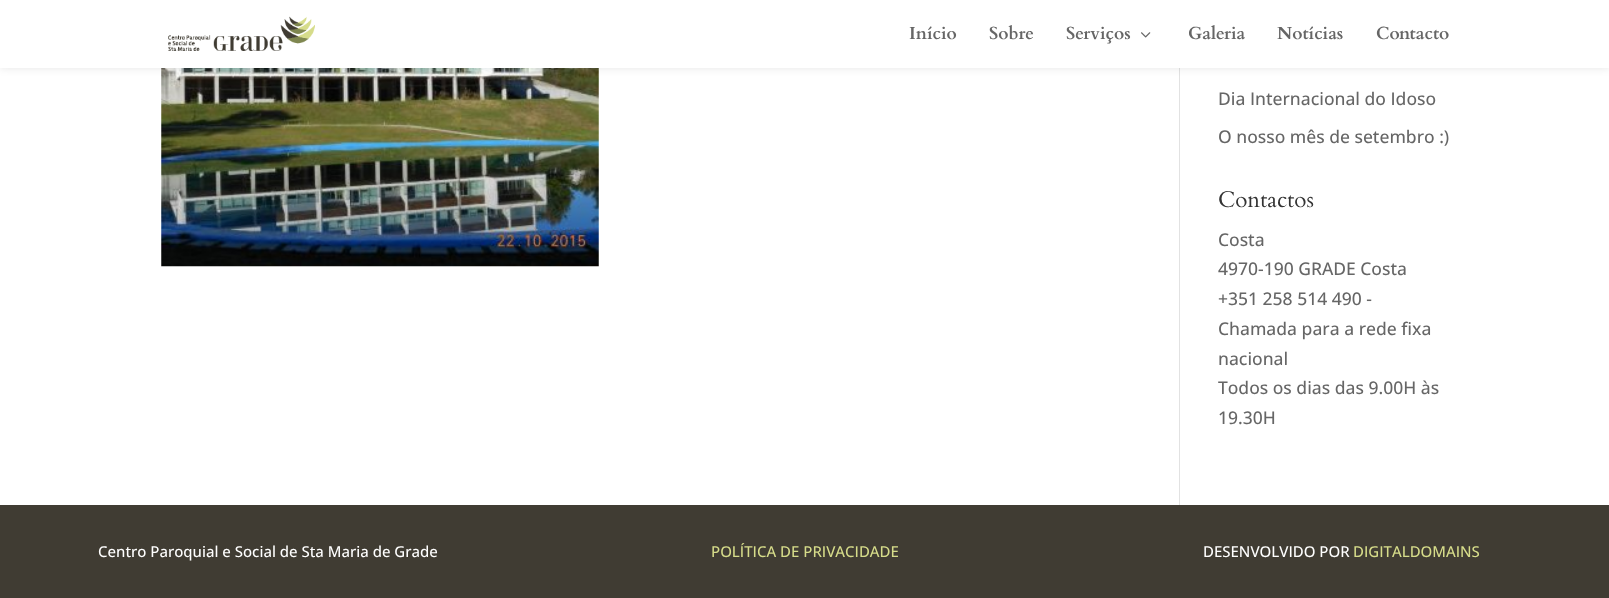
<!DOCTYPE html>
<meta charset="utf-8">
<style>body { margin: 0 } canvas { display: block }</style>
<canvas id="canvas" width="1609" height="598"></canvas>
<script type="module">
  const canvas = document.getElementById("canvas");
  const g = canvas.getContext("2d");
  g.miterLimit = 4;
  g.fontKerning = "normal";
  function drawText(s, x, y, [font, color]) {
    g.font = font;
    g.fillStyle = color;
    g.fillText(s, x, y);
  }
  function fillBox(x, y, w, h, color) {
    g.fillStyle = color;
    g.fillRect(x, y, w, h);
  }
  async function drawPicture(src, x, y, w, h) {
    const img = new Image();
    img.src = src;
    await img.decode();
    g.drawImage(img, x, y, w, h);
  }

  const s1 = ["bold 17.5px Cardo", "#666666"];
  const s2 = ["500 17.5px Open Sans", "#666666"];
  const s3 = ["22.5px Cardo", "#333333"];
  const s4 = ["500 15px Open Sans", "#FFFFFF"];
  const s5 = ["500 15px Open Sans", "#D6DC8A"];

  fillBox(0, 0, 1609, 598, "#FFFFFF");
  fillBox(1179, 68, 1, 437, "#E2E2E2");
  await drawPicture("pic3.png", 161, 68, 438, 199);
  g.fillStyle = "rgba(0, 0, 0, 0.1)";
  g.filter = "blur(4.5px)";
  g.beginPath();
  g.rect(0, 0, 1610, 68);
  g.fill();
  g.filter = "none";
  fillBox(0, 0, 1609, 68, "#FFFFFF");
  await drawPicture("pic1.png", 168, 16, 147, 35);
  drawText("Início", 909, 39, s1);
  drawText("Sobre", 989, 39, s1);
  drawText("Serviços", 1066, 39, s1);
  await drawPicture("pic2.png", 1141, 32, 10, 6);
  drawText("Galeria", 1188, 39, s1);
  drawText("Notícias", 1277, 39, s1);
  drawText("Contacto", 1376, 39, s1);
  drawText("Dia Internacional do Idoso", 1218, 105, s2);
  drawText("O nosso mês de setembro :)", 1218, 143, s2);
  drawText("Contactos", 1218, 207, s3);
  drawText("Costa", 1218, 246, s2);
  drawText("4970-190 GRADE Costa", 1218, 275, s2);
  drawText("+351 258 514 490 -", 1218, 305, s2);
  drawText("Chamada para a rede fixa", 1218, 335, s2);
  drawText("nacional", 1218, 365, s2);
  drawText("Todos os dias das 9.00H às", 1218, 394, s2);
  drawText("19.30H", 1218, 424, s2);
  fillBox(0, 505, 1609, 93, "#403C33");
  drawText("Centro Paroquial e Social de Sta Maria de Grade", 98, 557, s4);
  drawText("POLÍTICA DE PRIVACIDADE", 711, 557, s5);
  drawText("DESENVOLVIDO POR", 1203, 557, s4);
  drawText("DIGITALDOMAINS", 1353, 557, s5);
</script>
